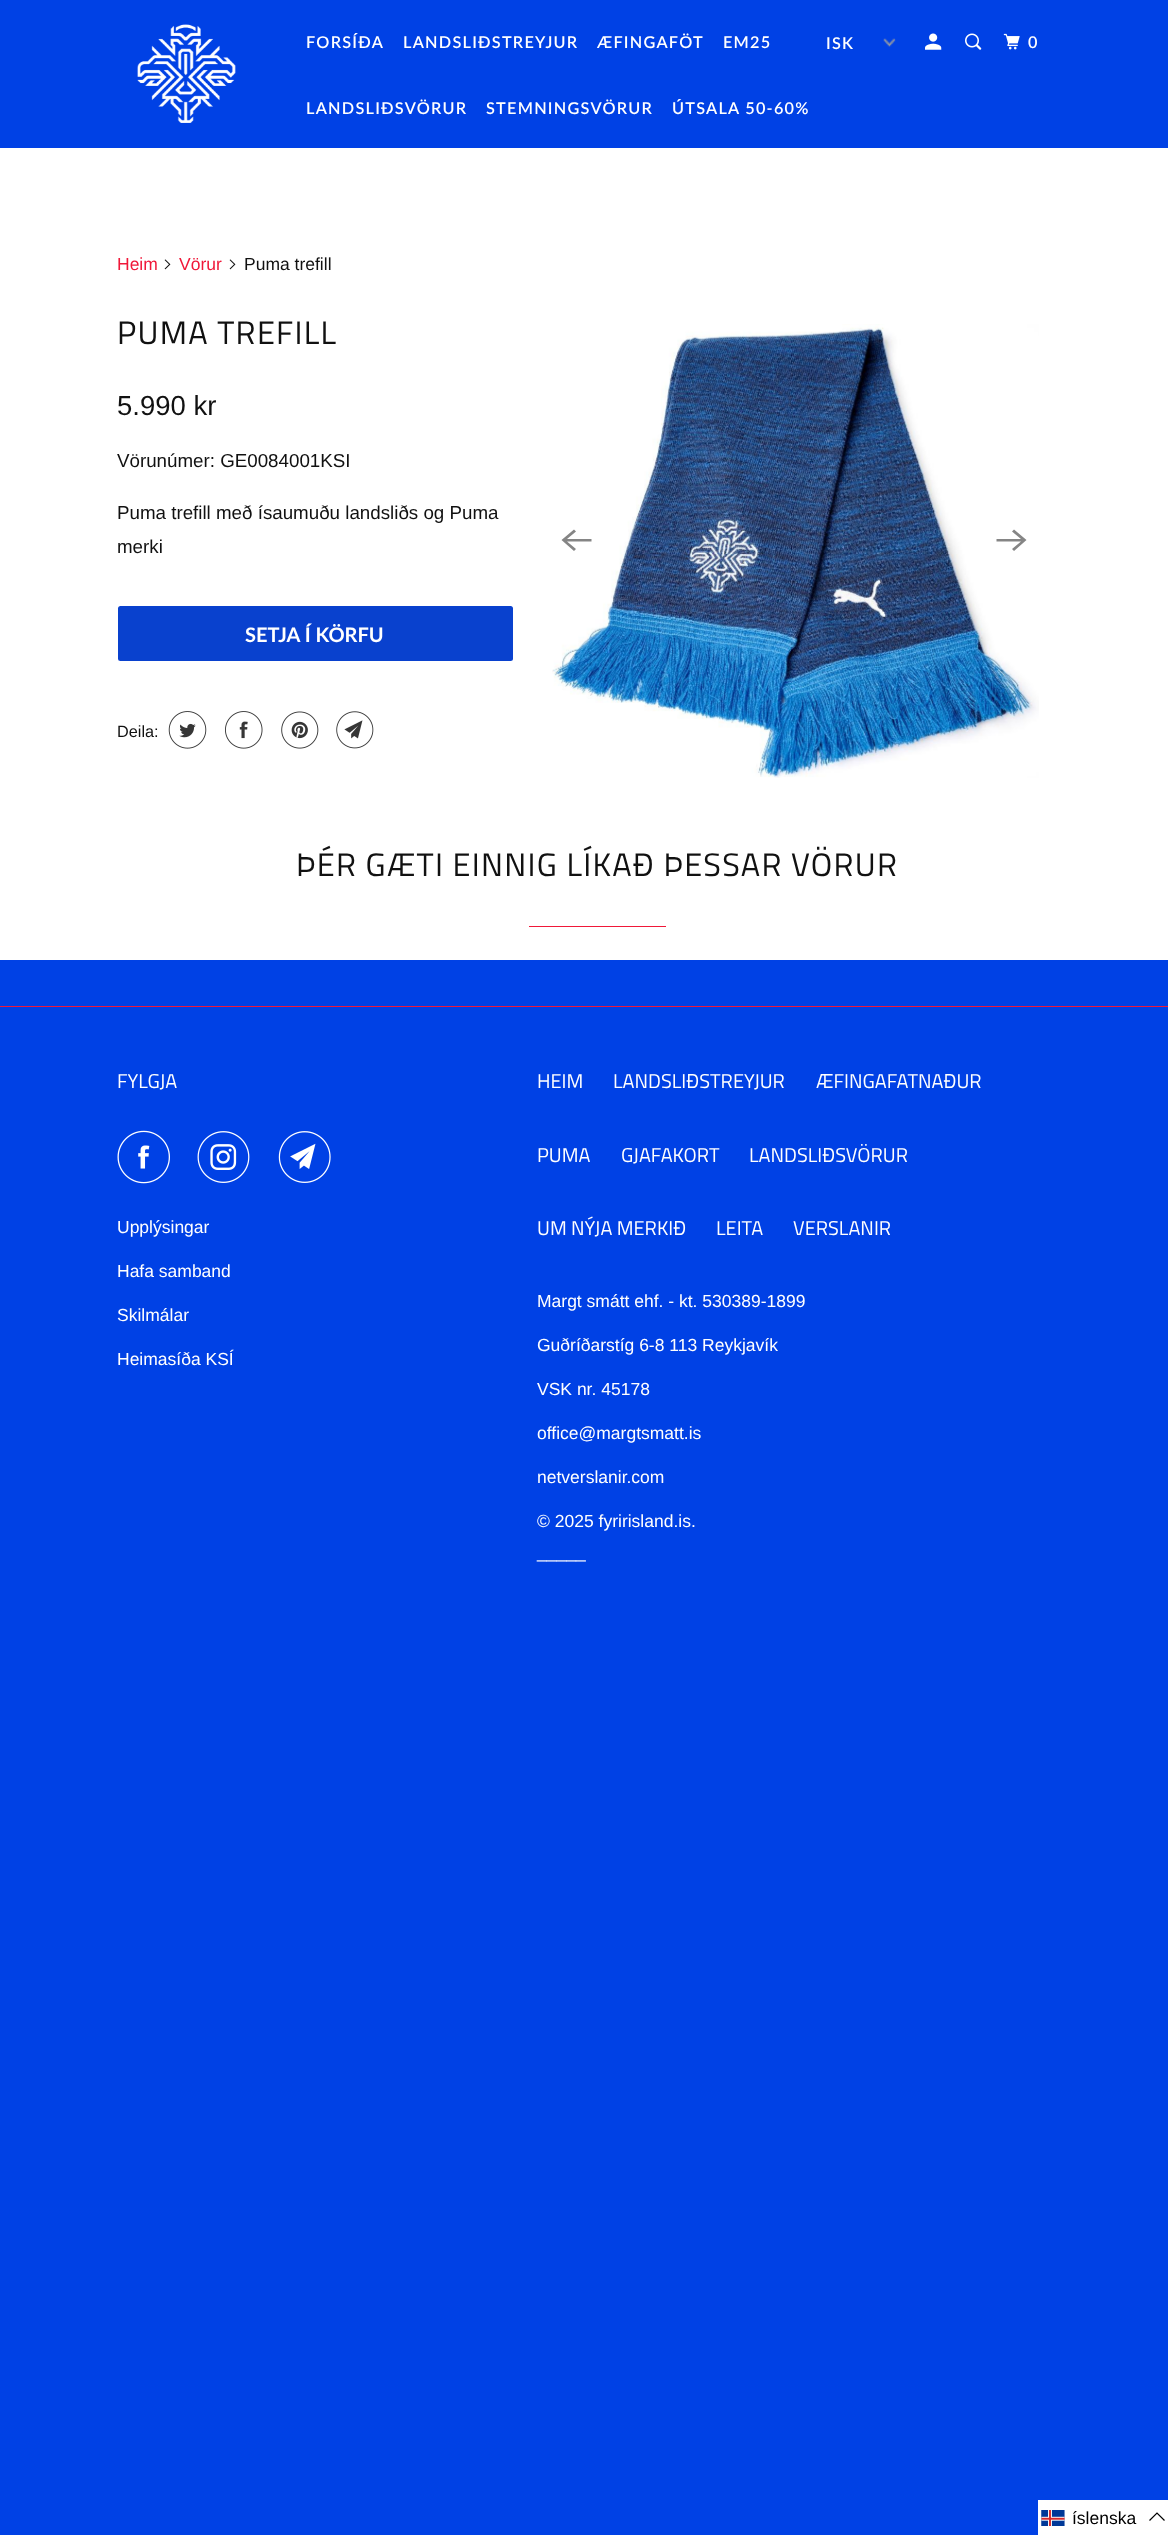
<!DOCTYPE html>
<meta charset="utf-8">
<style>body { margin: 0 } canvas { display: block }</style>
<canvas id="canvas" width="1168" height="2535"></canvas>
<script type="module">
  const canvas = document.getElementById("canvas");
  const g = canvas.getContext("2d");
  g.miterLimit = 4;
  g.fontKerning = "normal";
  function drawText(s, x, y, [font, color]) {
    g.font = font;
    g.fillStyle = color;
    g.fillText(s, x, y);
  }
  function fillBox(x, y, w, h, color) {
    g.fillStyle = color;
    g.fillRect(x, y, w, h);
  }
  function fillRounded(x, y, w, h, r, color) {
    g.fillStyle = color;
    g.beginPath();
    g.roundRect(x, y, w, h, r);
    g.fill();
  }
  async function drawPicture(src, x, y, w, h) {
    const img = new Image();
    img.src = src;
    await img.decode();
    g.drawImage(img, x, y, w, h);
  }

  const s1 = ["600 16.25px Lato", "#FFFFFF"];
  const s2 = ["17.5px Liberation Sans", "#F01839"];
  const s3 = ["17.5px Liberation Sans", "#111111"];
  const s4 = ["32.5px Titillium Web", "#111111"];
  const s5 = ["27.5px Liberation Sans", "#111111"];
  const s6 = ["18.75px Liberation Sans", "#111111"];
  const s7 = ["bold 20px Lato", "#FFFFFF"];
  const s8 = ["16.25px Liberation Sans", "#111111"];
  const s9 = ["20px Titillium Web", "#FFFFFF"];
  const s10 = ["17.5px Liberation Sans", "#FFFFFF"];
  const s11 = ["17.5px Liberation Sans", "#000000"];

  fillBox(0, 0, 1168, 2535, "#0041E5");
  fillBox(0, 148, 1168, 812, "#FFFFFF");
  await drawPicture("pic1.png", 137, 24, 99, 99);
  g.letterSpacing = "1.25px";
  drawText("FORSÍÐA", 306, 48, s1);
  drawText("LANDSLIÐSTREYJUR", 403, 48, s1);
  drawText("ÆFINGAFÖT", 597, 48, s1);
  drawText("EM25", 723, 48, s1);
  drawText("LANDSLIÐSVÖRUR", 306, 114, s1);
  drawText("STEMNINGSVÖRUR", 486, 114, s1);
  drawText("ÚTSALA 50-60%", 672, 114, s1);
  await drawPicture("pic2.png", 883, 38, 13, 9);
  drawText("ISK", 826, 49, s1);
  await drawPicture("pic3.png", 925, 33, 17, 17);
  await drawPicture("pic4.png", 965, 33, 17, 17);
  await drawPicture("pic5.png", 1003, 33, 17, 17);
  drawText("0", 1028, 48, s1);
  g.letterSpacing = "0px";
  drawText("Heim", 117, 270, s2);
  await drawPicture("pic6.png", 164, 259, 7, 11);
  drawText("Vörur", 179, 270, s2);
  await drawPicture("pic6.png", 229, 259, 7, 11);
  drawText("Puma trefill", 244, 270, s3);
  g.letterSpacing = "1.25px";
  drawText("PUMA TREFILL", 117, 344, s4);
  g.letterSpacing = "0px";
  drawText("5.990 kr", 117, 415, s5);
  drawText("Vörunúmer: GE0084001KSI", 117, 467, s6);
  drawText("Puma trefill með ísaumuðu landsliðs og Puma", 117, 519, s6);
  drawText("merki", 117, 553, s6);
  fillRounded(118, 606, 395, 55, 2.5, "#0941CE");
  drawText("SETJA Í KÖRFU", 245, 642, s7);
  drawText("Deila:", 117, 737, s8);
  await drawPicture("pic7.png", 168, 711, 39, 38);
  await drawPicture("pic8.png", 225, 711, 38, 38);
  await drawPicture("pic9.png", 281, 711, 38, 38);
  await drawPicture("pic10.png", 336, 711, 38, 38);
  await drawPicture("pic11.png", 552, 324, 487, 454);
  g.fillStyle = "#858585";
  g.beginPath();
  g.moveTo(591.5, 539);
  g.lineTo(567, 539);
  g.lineTo(576, 531.5);
  g.lineTo(574, 529.5);
  g.lineTo(561.5, 540);
  g.lineTo(574, 551);
  g.lineTo(576, 549);
  g.lineTo(567, 541.5);
  g.lineTo(591.5, 541.5);
  g.closePath();
  g.fill();
  g.beginPath();
  g.moveTo(996.5, 541.5);
  g.lineTo(1021, 541.5);
  g.lineTo(1012, 549);
  g.lineTo(1014, 551);
  g.lineTo(1026.5, 540);
  g.lineTo(1014, 529.5);
  g.lineTo(1012, 531.5);
  g.lineTo(1021, 539);
  g.lineTo(996.5, 539);
  g.closePath();
  g.fill();
  g.letterSpacing = "1.25px";
  drawText("ÞÉR GÆTI EINNIG LÍKAÐ ÞESSAR VÖRUR", 296, 876, s4);
  fillBox(529, 926, 137, 1, "#F01839");
  fillBox(0, 1006, 1168, 1, "#F01839");
  g.letterSpacing = "0px";
  drawText("FYLGJA", 117, 1088, s9);
  await drawPicture("pic12.png", 117, 1130, 53, 54);
  await drawPicture("pic13.png", 197, 1131, 53, 52);
  await drawPicture("pic14.png", 278, 1131, 53, 52);
  drawText("Upplýsingar", 117, 1233, s10);
  drawText("Hafa samband", 117, 1277, s10);
  drawText("Skilmálar", 117, 1321, s10);
  drawText("Heimasíða KSÍ", 117, 1365, s10);
  drawText("HEIM", 537, 1088, s9);
  drawText("LANDSLIÐSTREYJUR", 613, 1088, s9);
  drawText("ÆFINGAFATNAÐUR", 816, 1088, s9);
  drawText("PUMA", 537, 1162, s9);
  drawText("GJAFAKORT", 621, 1162, s9);
  drawText("LANDSLIÐSVÖRUR", 749, 1162, s9);
  drawText("UM NÝJA MERKIÐ", 537, 1235, s9);
  drawText("LEITA", 716, 1235, s9);
  drawText("VERSLANIR", 793, 1235, s9);
  drawText("Margt smátt ehf. - kt. 530389-1899", 537, 1307, s10);
  drawText("Guðríðarstíg 6-8 113 Reykjavík", 537, 1351, s10);
  drawText("VSK nr. 45178", 537, 1395, s10);
  drawText("office@margtsmatt.is", 537, 1439, s10);
  drawText("netverslanir.com", 537, 1483, s10);
  drawText("© 2025 fyririsland.is.", 537, 1527, s10);
  drawText("_____", 537, 1558, s10);
  fillBox(1038, 2500, 130, 35, "#FFFFFF");
  await drawPicture("pic15.png", 1041, 2510, 24, 16);
  drawText("íslenska", 1072, 2524, s11);
  g.beginPath();
  g.moveTo(1164.5, 2520.5);
  g.lineTo(1157, 2513);
  g.lineTo(1149.5, 2520.5);
  g.strokeStyle = "#000000";
  g.lineWidth = 1.2;
  g.stroke();
</script>
